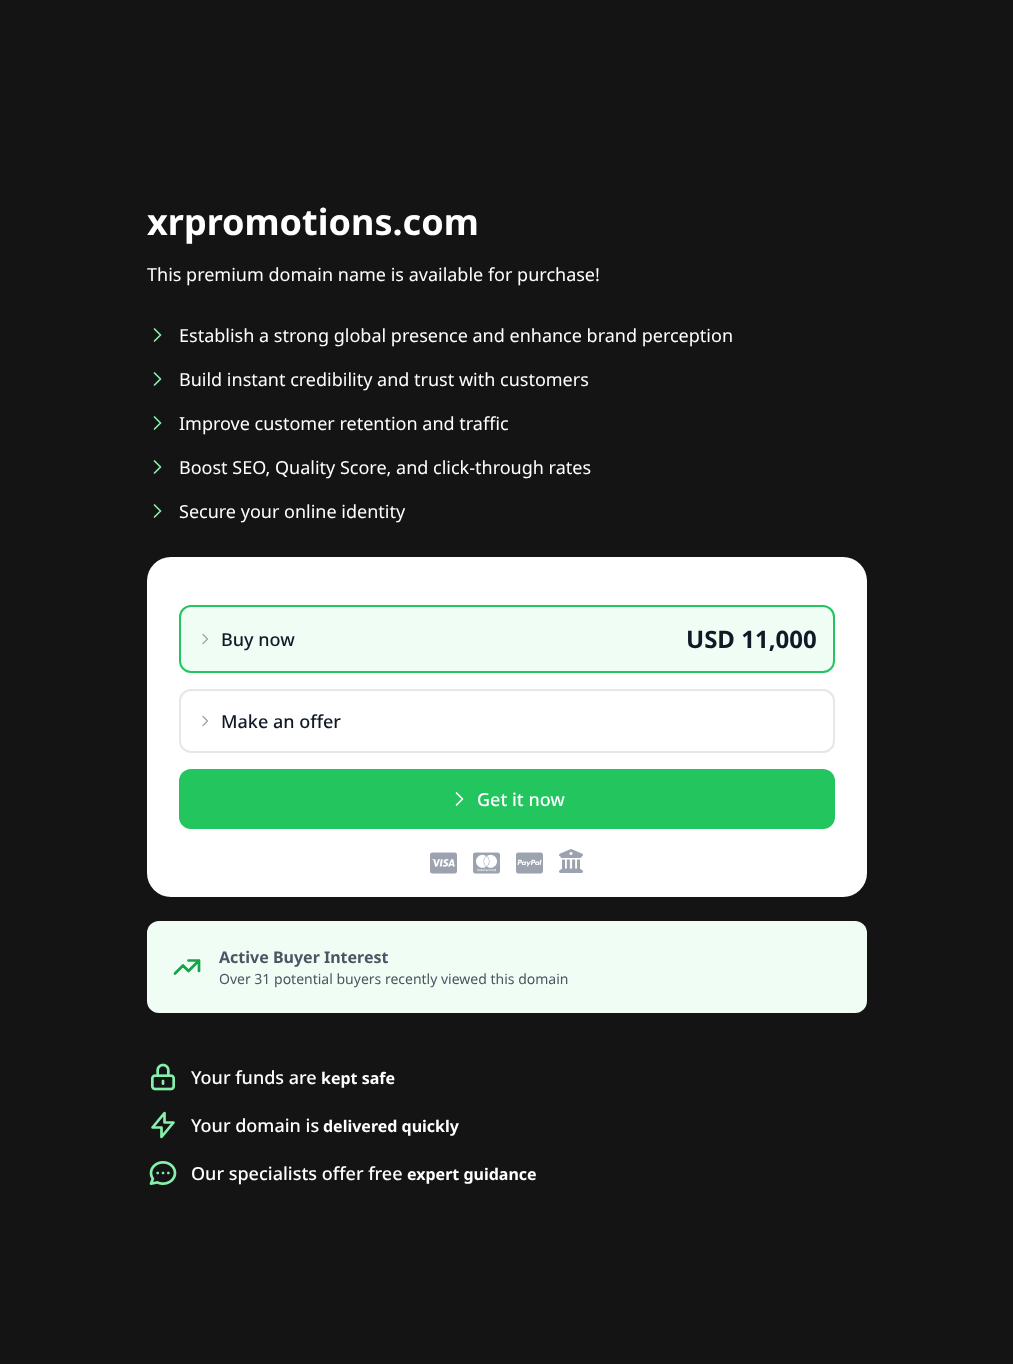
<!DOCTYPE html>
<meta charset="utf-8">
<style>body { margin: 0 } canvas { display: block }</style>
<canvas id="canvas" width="1013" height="1364"></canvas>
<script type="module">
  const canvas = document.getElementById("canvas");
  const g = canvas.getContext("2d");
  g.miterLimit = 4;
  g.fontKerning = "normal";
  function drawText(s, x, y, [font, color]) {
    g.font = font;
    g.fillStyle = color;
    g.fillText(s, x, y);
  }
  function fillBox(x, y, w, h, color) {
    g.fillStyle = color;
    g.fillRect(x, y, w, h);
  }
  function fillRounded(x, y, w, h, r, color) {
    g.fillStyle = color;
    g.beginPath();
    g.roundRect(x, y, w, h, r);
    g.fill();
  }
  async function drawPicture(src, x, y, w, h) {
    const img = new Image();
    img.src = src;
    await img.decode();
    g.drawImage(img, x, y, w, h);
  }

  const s1 = ["bold 36px Noto Sans", "#FFFFFF"];
  const s2 = ["18px Noto Sans", "#FFFFFF"];
  const s3 = ["500 18px Noto Sans", "#111827"];
  const s4 = ["bold 24px Noto Sans", "#111827"];
  const s5 = ["500 18px Noto Sans", "#FFFFFF"];
  const s6 = ["bold 16px Noto Sans", "#4B5563"];
  const s7 = ["14px Noto Sans", "#4B5563"];
  const s8 = ["bold 16px Noto Sans", "#FFFFFF"];

  fillBox(0, 0, 1013, 1364, "#141414");
  drawText("xrpromotions.com", 147, 235, s1);
  drawText("This premium domain name is available for purchase!", 147, 281, s2);
  g.beginPath();
  g.moveTo(154.5, 329);
  g.lineTo(160.5, 335);
  g.lineTo(154.5, 341);
  g.moveTo(154.5, 373);
  g.lineTo(160.5, 379);
  g.lineTo(154.5, 385);
  g.strokeStyle = "#86EFAC";
  g.lineWidth = 1.7;
  g.lineCap = "round";
  g.lineJoin = "round";
  g.stroke();
  drawText("Establish a strong global presence and enhance brand perception", 179, 342, s2);
  drawText("Build instant credibility and trust with customers", 179, 386, s2);
  g.beginPath();
  g.moveTo(154.5, 417);
  g.lineTo(160.5, 423);
  g.lineTo(154.5, 429);
  g.moveTo(154.5, 461);
  g.lineTo(160.5, 467);
  g.lineTo(154.5, 473);
  g.stroke();
  drawText("Improve customer retention and traffic", 179, 430, s2);
  drawText("Boost SEO, Quality Score, and click-through rates", 179, 474, s2);
  g.beginPath();
  g.moveTo(154.5, 505);
  g.lineTo(160.5, 511);
  g.lineTo(154.5, 517);
  g.stroke();
  drawText("Secure your online identity", 179, 518, s2);
  fillRounded(147, 557, 720, 340, 24, "#FFFFFF");
  g.fillStyle = "#F0FDF4";
  g.beginPath();
  g.roundRect(180, 606, 654, 66, 11);
  g.fill();
  g.strokeStyle = "#22C55E";
  g.lineWidth = 2;
  g.lineJoin = "miter";
  g.stroke();
  g.beginPath();
  g.moveTo(203, 634.5);
  g.lineTo(207.5, 639);
  g.lineTo(203, 643.5);
  g.strokeStyle = "#9CA3AF";
  g.lineWidth = 1.3;
  g.lineJoin = "round";
  g.stroke();
  drawText("Buy now", 221, 646, s3);
  drawText("USD 11,000", 686, 648, s4);
  g.beginPath();
  g.roundRect(180, 690, 654, 62, 11);
  g.strokeStyle = "#E5E7EB";
  g.lineWidth = 2;
  g.lineJoin = "miter";
  g.stroke();
  g.beginPath();
  g.moveTo(203, 716.5);
  g.lineTo(207.5, 721);
  g.lineTo(203, 725.5);
  g.strokeStyle = "#9CA3AF";
  g.lineWidth = 1.3;
  g.lineJoin = "round";
  g.stroke();
  drawText("Make an offer", 221, 728, s3);
  fillRounded(179, 769, 656, 60, 12, "#22C55E");
  g.beginPath();
  g.moveTo(456.5, 793);
  g.lineTo(462.5, 799);
  g.lineTo(456.5, 805);
  g.strokeStyle = "#FFFFFF";
  g.lineWidth = 1.7;
  g.stroke();
  drawText("Get it now", 477, 806, s5);
  await drawPicture("pic1.png", 430, 852, 27, 22);
  await drawPicture("pic2.png", 473, 852, 27, 22);
  await drawPicture("pic3.png", 516, 852, 27, 22);
  await drawPicture("pic4.png", 559, 849, 24, 24);
  fillRounded(147, 921, 720, 92, 12, "#F0FDF4");
  g.beginPath();
  g.moveTo(188.5, 960.5);
  g.lineTo(199, 960.5);
  g.moveTo(199, 960.5);
  g.lineTo(199, 971);
  g.moveTo(199, 960.5);
  g.lineTo(188.5, 971);
  g.lineTo(183, 965.5);
  g.lineTo(175, 973.5);
  g.strokeStyle = "#16A34A";
  g.lineWidth = 2.7;
  g.stroke();
  drawText("Active Buyer Interest", 219, 963, s6);
  drawText("Over 31 potential buyers recently viewed this domain", 219, 984, s7);
  await drawPicture("pic5.png", 151, 1063, 24, 28);
  drawText("Your funds are", 191, 1084, s5);
  drawText("kept safe", 321, 1084, s8);
  g.beginPath();
  g.moveTo(164.5, 1122.5);
  g.lineTo(164.5, 1113);
  g.lineTo(152.5, 1127.5);
  g.lineTo(161.5, 1127.5);
  g.lineTo(161.5, 1137);
  g.lineTo(173.5, 1122.5);
  g.closePath();
  g.strokeStyle = "#86EFAC";
  g.stroke();
  drawText("Your domain is", 191, 1132, s5);
  drawText("delivered quickly", 323, 1132, s8);
  await drawPicture("pic6.png", 149, 1161, 28, 24);
  drawText("Our specialists offer free", 191, 1180, s5);
  drawText("expert guidance", 407, 1180, s8);
</script>
